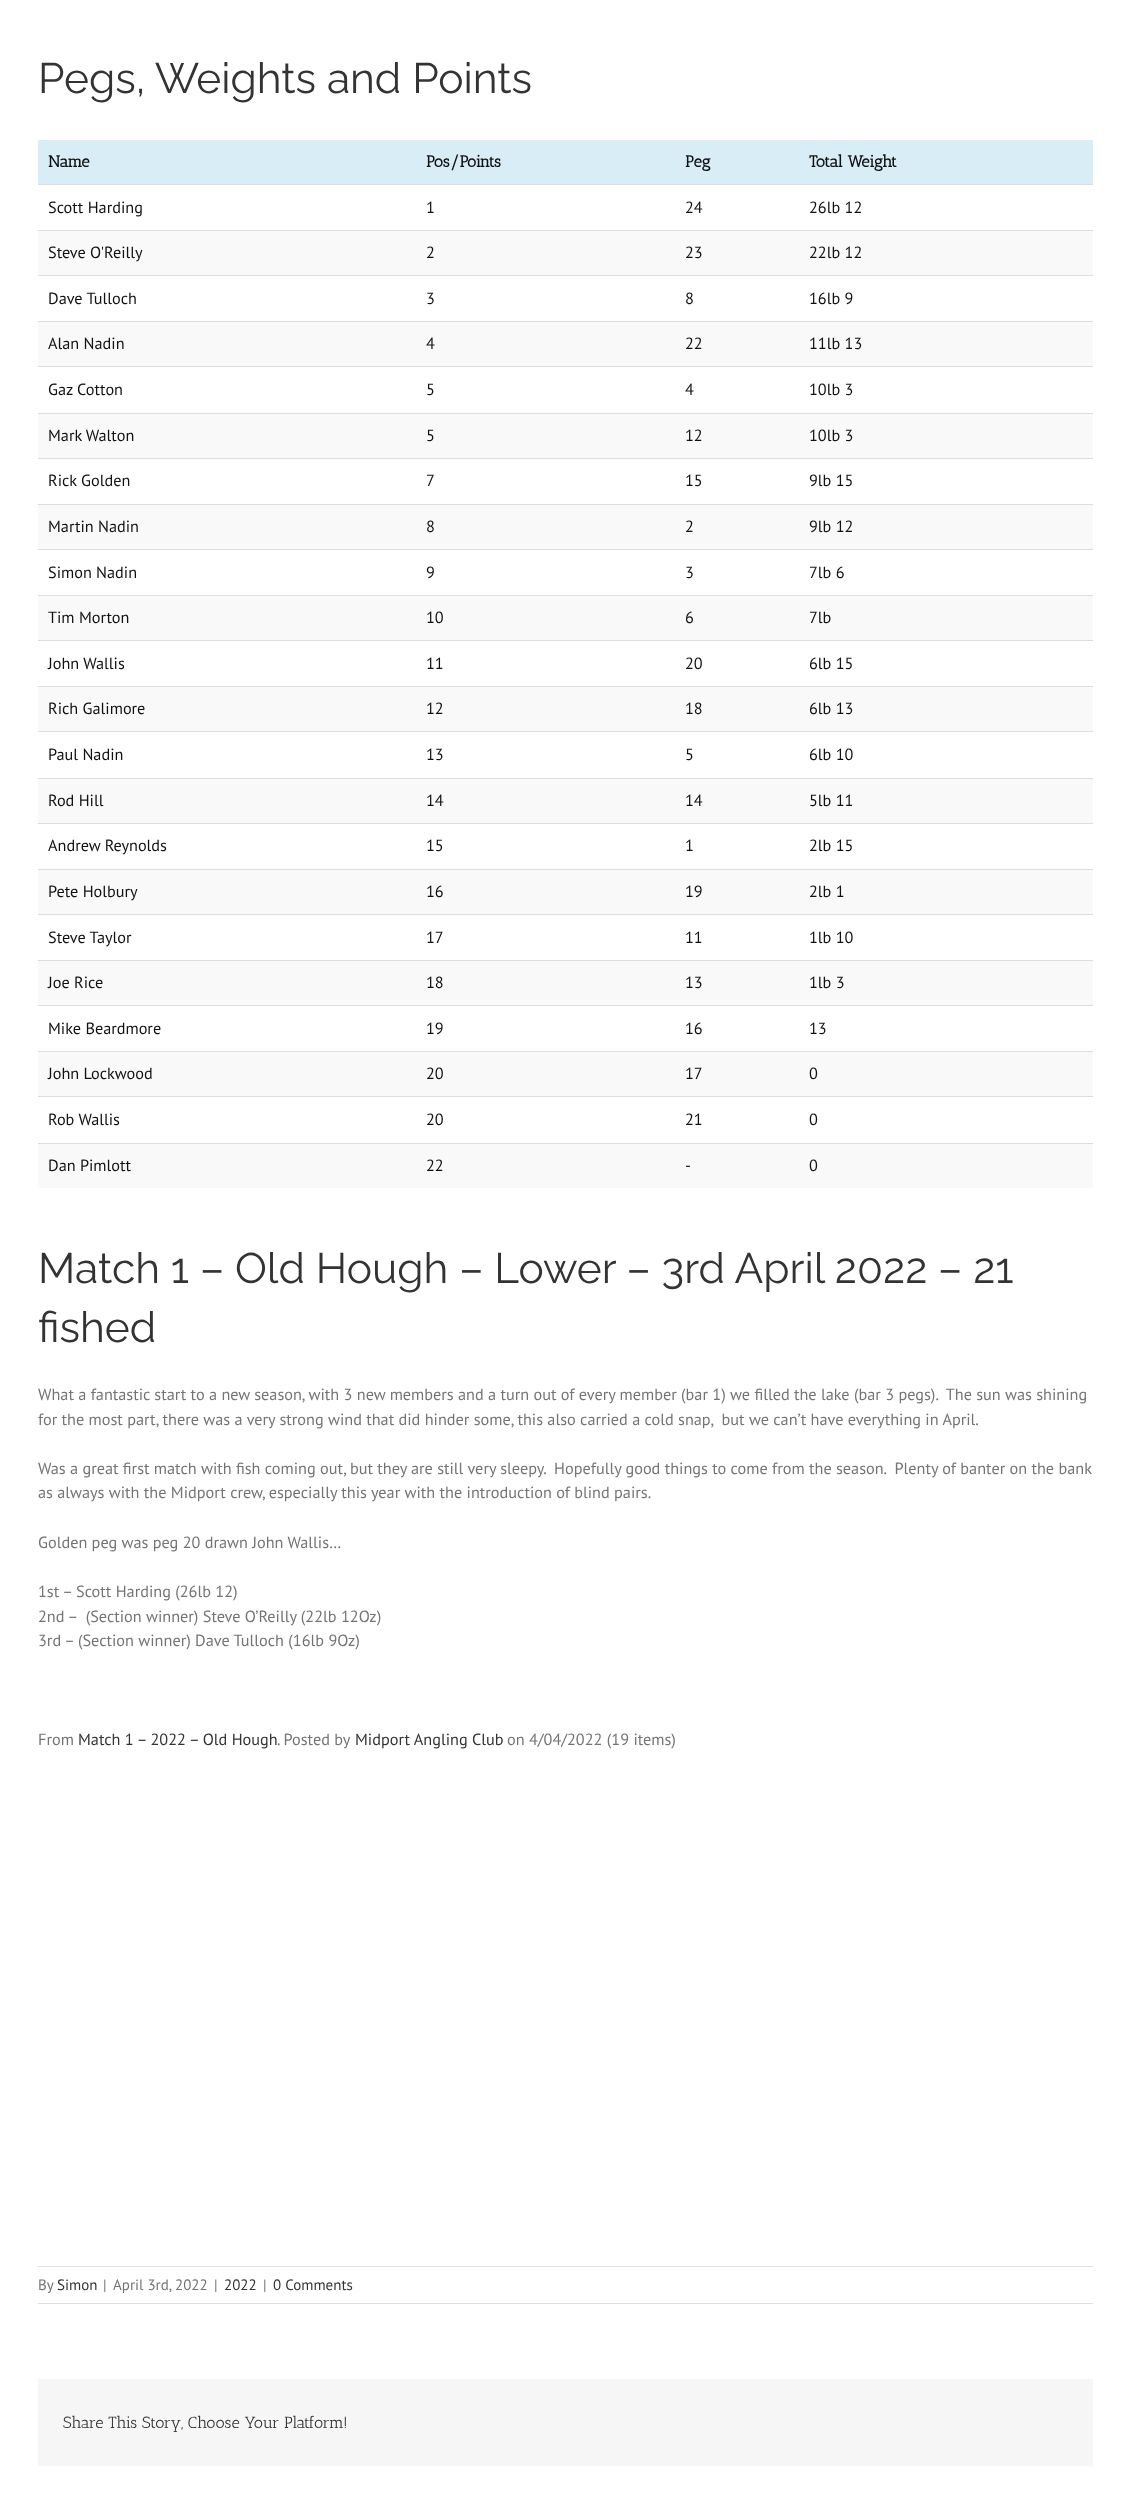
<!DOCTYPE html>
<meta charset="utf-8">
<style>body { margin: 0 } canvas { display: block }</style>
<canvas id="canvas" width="1129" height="2498"></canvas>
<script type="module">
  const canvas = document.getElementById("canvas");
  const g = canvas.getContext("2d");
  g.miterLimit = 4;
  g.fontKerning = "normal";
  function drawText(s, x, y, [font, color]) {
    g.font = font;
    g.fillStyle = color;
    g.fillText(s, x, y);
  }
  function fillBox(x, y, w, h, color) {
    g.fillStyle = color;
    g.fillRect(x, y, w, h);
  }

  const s1 = ["100 42.5px Raleway", "#333333"];
  const s2 = ["bold 16.25px Antic Slab", "#111111"];
  const s3 = ["16.25px PT Sans", "#111111"];
  const s4 = ["16.25px PT Sans", "#747474"];
  const s5 = ["16.25px PT Sans", "#333333"];
  const s6 = ["15px PT Sans", "#747474"];
  const s7 = ["15px PT Sans", "#333333"];
  const s8 = ["16.25px Antic Slab", "#333333"];

  fillBox(0, 0, 1129, 2498, "#FFFFFF");
  drawText("Pegs, Weights and Points", 38, 93, s1);
  fillBox(38, 140, 1055, 44, "#D9EDF7");
  drawText("Name", 48, 167, s2);
  drawText("Pos/Points", 426, 167, s2);
  drawText("Peg", 685, 167, s2);
  drawText("Total Weight", 809, 167, s2);
  fillBox(38, 184, 1055, 1, "#DDDDDD");
  drawText("Scott Harding", 48, 213, s3);
  drawText("1", 426, 213, s3);
  drawText("24", 685, 213, s3);
  drawText("26lb 12", 809, 213, s3);
  fillBox(38, 231, 1055, 44, "#F9F9F9");
  fillBox(38, 230, 1055, 1, "#DDDDDD");
  drawText("Steve O'Reilly", 48, 258, s3);
  drawText("2", 426, 258, s3);
  drawText("23", 685, 258, s3);
  drawText("22lb 12", 809, 258, s3);
  fillBox(38, 275, 1055, 1, "#DDDDDD");
  drawText("Dave Tulloch", 48, 304, s3);
  drawText("3", 426, 304, s3);
  drawText("8", 685, 304, s3);
  drawText("16lb 9", 809, 304, s3);
  fillBox(38, 322, 1055, 44, "#F9F9F9");
  fillBox(38, 321, 1055, 1, "#DDDDDD");
  drawText("Alan Nadin", 48, 349, s3);
  drawText("4", 426, 349, s3);
  drawText("22", 685, 349, s3);
  drawText("11lb 13", 809, 349, s3);
  fillBox(38, 366, 1055, 1, "#DDDDDD");
  drawText("Gaz Cotton", 48, 395, s3);
  drawText("5", 426, 395, s3);
  drawText("4", 685, 395, s3);
  drawText("10lb 3", 809, 395, s3);
  fillBox(38, 414, 1055, 44, "#F9F9F9");
  fillBox(38, 413, 1055, 1, "#DDDDDD");
  drawText("Mark Walton", 48, 441, s3);
  drawText("5", 426, 441, s3);
  drawText("12", 685, 441, s3);
  drawText("10lb 3", 809, 441, s3);
  fillBox(38, 458, 1055, 1, "#DDDDDD");
  drawText("Rick Golden", 48, 486, s3);
  drawText("7", 426, 486, s3);
  drawText("15", 685, 486, s3);
  drawText("9lb 15", 809, 486, s3);
  fillBox(38, 505, 1055, 44, "#F9F9F9");
  fillBox(38, 504, 1055, 1, "#DDDDDD");
  drawText("Martin Nadin", 48, 532, s3);
  drawText("8", 426, 532, s3);
  drawText("2", 685, 532, s3);
  drawText("9lb 12", 809, 532, s3);
  fillBox(38, 549, 1055, 1, "#DDDDDD");
  drawText("Simon Nadin", 48, 578, s3);
  drawText("9", 426, 578, s3);
  drawText("3", 685, 578, s3);
  drawText("7lb 6", 809, 578, s3);
  fillBox(38, 596, 1055, 44, "#F9F9F9");
  fillBox(38, 595, 1055, 1, "#DDDDDD");
  drawText("Tim Morton", 48, 623, s3);
  drawText("10", 426, 623, s3);
  drawText("6", 685, 623, s3);
  drawText("7lb", 809, 623, s3);
  fillBox(38, 640, 1055, 1, "#DDDDDD");
  drawText("John Wallis", 48, 669, s3);
  drawText("11", 426, 669, s3);
  drawText("20", 685, 669, s3);
  drawText("6lb 15", 809, 669, s3);
  fillBox(38, 687, 1055, 44, "#F9F9F9");
  fillBox(38, 686, 1055, 1, "#DDDDDD");
  drawText("Rich Galimore", 48, 714, s3);
  drawText("12", 426, 714, s3);
  drawText("18", 685, 714, s3);
  drawText("6lb 13", 809, 714, s3);
  fillBox(38, 731, 1055, 1, "#DDDDDD");
  drawText("Paul Nadin", 48, 760, s3);
  drawText("13", 426, 760, s3);
  drawText("5", 685, 760, s3);
  drawText("6lb 10", 809, 760, s3);
  fillBox(38, 779, 1055, 44, "#F9F9F9");
  fillBox(38, 778, 1055, 1, "#DDDDDD");
  drawText("Rod Hill", 48, 806, s3);
  drawText("14", 426, 806, s3);
  drawText("14", 685, 806, s3);
  drawText("5lb 11", 809, 806, s3);
  fillBox(38, 823, 1055, 1, "#DDDDDD");
  drawText("Andrew Reynolds", 48, 851, s3);
  drawText("15", 426, 851, s3);
  drawText("1", 685, 851, s3);
  drawText("2lb 15", 809, 851, s3);
  fillBox(38, 870, 1055, 44, "#F9F9F9");
  fillBox(38, 869, 1055, 1, "#DDDDDD");
  drawText("Pete Holbury", 48, 897, s3);
  drawText("16", 426, 897, s3);
  drawText("19", 685, 897, s3);
  drawText("2lb 1", 809, 897, s3);
  fillBox(38, 914, 1055, 1, "#DDDDDD");
  drawText("Steve Taylor", 48, 943, s3);
  drawText("17", 426, 943, s3);
  drawText("11", 685, 943, s3);
  drawText("1lb 10", 809, 943, s3);
  fillBox(38, 961, 1055, 44, "#F9F9F9");
  fillBox(38, 960, 1055, 1, "#DDDDDD");
  drawText("Joe Rice", 48, 988, s3);
  drawText("18", 426, 988, s3);
  drawText("13", 685, 988, s3);
  drawText("1lb 3", 809, 988, s3);
  fillBox(38, 1005, 1055, 1, "#DDDDDD");
  drawText("Mike Beardmore", 48, 1034, s3);
  drawText("19", 426, 1034, s3);
  drawText("16", 685, 1034, s3);
  drawText("13", 809, 1034, s3);
  fillBox(38, 1052, 1055, 44, "#F9F9F9");
  fillBox(38, 1051, 1055, 1, "#DDDDDD");
  drawText("John Lockwood", 48, 1079, s3);
  drawText("20", 426, 1079, s3);
  drawText("17", 685, 1079, s3);
  drawText("0", 809, 1079, s3);
  fillBox(38, 1096, 1055, 1, "#DDDDDD");
  drawText("Rob Wallis", 48, 1125, s3);
  drawText("20", 426, 1125, s3);
  drawText("21", 685, 1125, s3);
  drawText("0", 809, 1125, s3);
  fillBox(38, 1144, 1055, 44, "#F9F9F9");
  fillBox(38, 1143, 1055, 1, "#DDDDDD");
  drawText("Dan Pimlott", 48, 1171, s3);
  drawText("22", 426, 1171, s3);
  drawText("-", 685, 1171, s3);
  drawText("0", 809, 1171, s3);
  drawText("Match 1 – Old Hough – Lower – 3rd April 2022 – 21", 38, 1283, s1);
  drawText("fished", 38, 1342, s1);
  drawText("What a fantastic start to a new season, with 3 new members and a turn out of every member (bar 1) we filled the lake (bar 3 pegs).  The sun was shining", 38, 1400, s4);
  drawText("for the most part, there was a very strong wind that did hinder some, this also carried a cold snap,  but we can’t have everything in April.", 38, 1425, s4);
  drawText("Was a great first match with fish coming out, but they are still very sleepy.  Hopefully good things to come from the season.  Plenty of banter on the bank", 38, 1474, s4);
  drawText("as always with the Midport crew, especially this year with the introduction of blind pairs.", 38, 1498, s4);
  drawText("Golden peg was peg 20 drawn John Wallis…", 38, 1548, s4);
  drawText("1st – Scott Harding (26lb 12)", 38, 1597, s4);
  drawText("2nd –  (Section winner) Steve O’Reilly (22lb 12Oz)", 38, 1622, s4);
  drawText("3rd – (Section winner) Dave Tulloch (16lb 9Oz)", 38, 1646, s4);
  drawText("From", 38, 1745, s4);
  drawText("Match 1 – 2022 – Old Hough", 78, 1745, s5);
  drawText(". Posted by", 277, 1745, s4);
  drawText("Midport Angling Club", 355, 1745, s5);
  drawText("on 4/04/2022 (19 items)", 507, 1745, s4);
  fillBox(38, 2266, 1055, 1, "#E0DEDE");
  fillBox(38, 2303, 1055, 1, "#E0DEDE");
  drawText("By", 38, 2290, s6);
  drawText("Simon", 57, 2290, s7);
  drawText("|", 103, 2290, s6);
  drawText("April 3rd, 2022", 113, 2290, s6);
  drawText("|", 214, 2290, s6);
  drawText("2022", 224, 2290, s7);
  drawText("|", 263, 2290, s6);
  drawText("0 Comments", 273, 2290, s7);
  fillBox(38, 2379, 1055, 87, "#F6F6F6");
  drawText("Share This Story, Choose Your Platform!", 63, 2428, s8);
</script>
